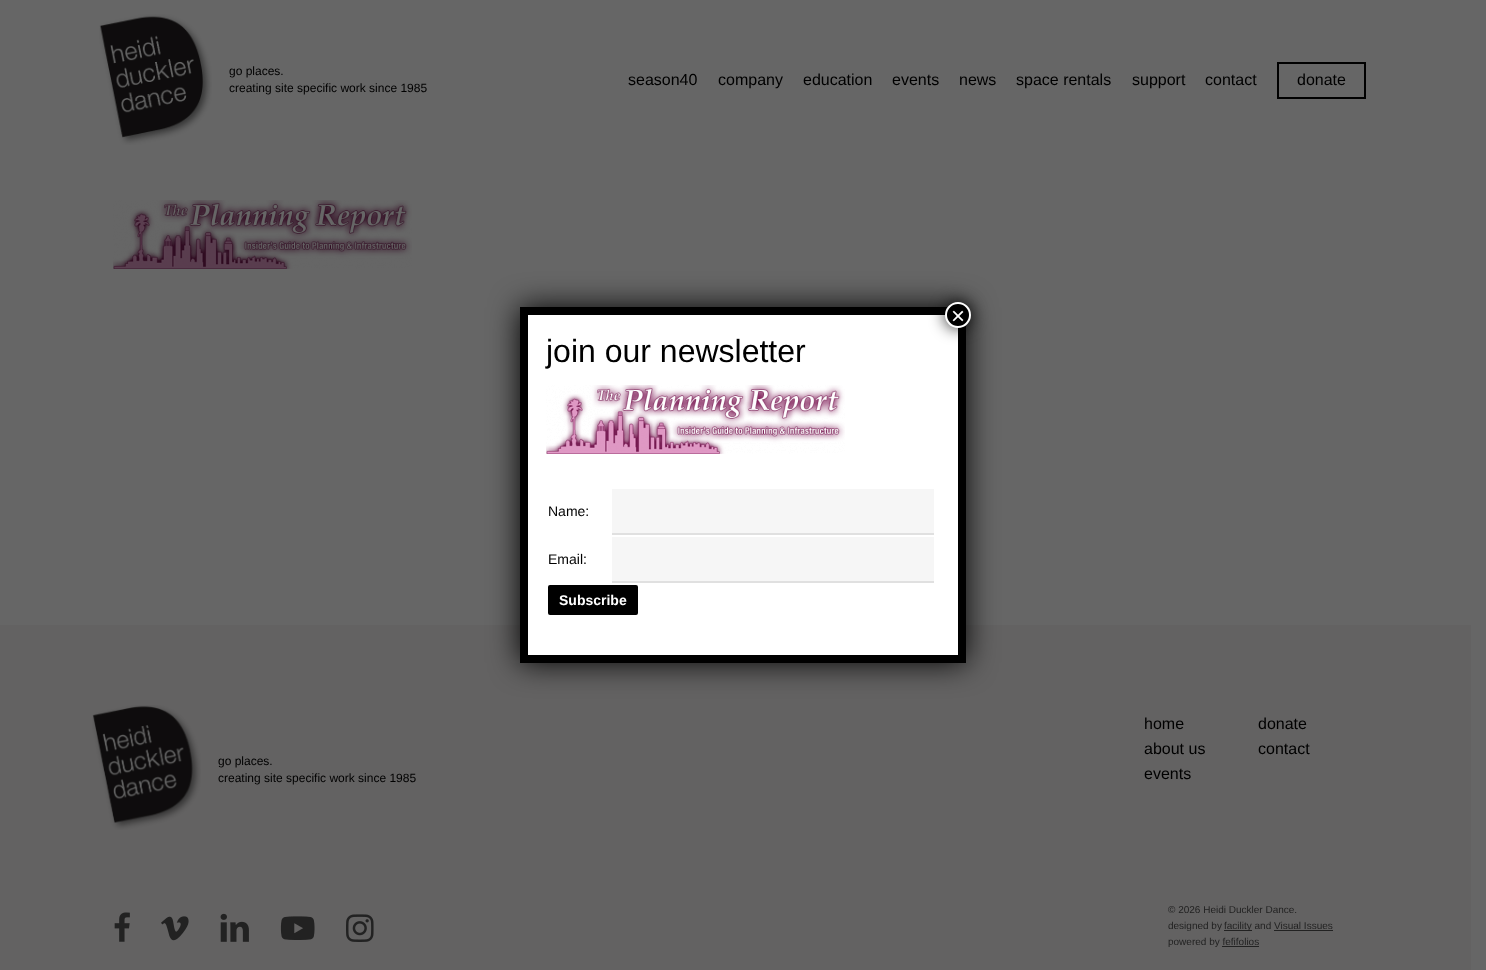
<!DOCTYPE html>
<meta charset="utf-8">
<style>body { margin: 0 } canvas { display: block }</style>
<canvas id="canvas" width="1486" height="970"></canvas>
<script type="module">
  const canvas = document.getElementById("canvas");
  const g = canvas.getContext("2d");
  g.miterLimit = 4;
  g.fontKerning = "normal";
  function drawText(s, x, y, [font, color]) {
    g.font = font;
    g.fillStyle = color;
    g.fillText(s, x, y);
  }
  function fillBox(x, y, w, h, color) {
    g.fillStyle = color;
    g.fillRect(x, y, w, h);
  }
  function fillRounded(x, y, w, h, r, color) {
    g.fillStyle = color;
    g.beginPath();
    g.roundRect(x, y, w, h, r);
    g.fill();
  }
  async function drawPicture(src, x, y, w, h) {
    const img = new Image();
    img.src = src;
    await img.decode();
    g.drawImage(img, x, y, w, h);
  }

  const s1 = ["12px Liberation Sans", "#000000"];
  const s2 = ["16px Liberation Sans", "#000000"];
  const s3 = ["10px Liberation Sans", "#222222"];
  const s4 = ["24px Liberation Sans", "#FFFFFF"];
  const s5 = ["32px Liberation Sans", "#000000"];
  const s6 = ["14px Liberation Sans", "#000000"];
  const s7 = ["bold 14px Liberation Sans", "#FFFFFF"];

  fillBox(0, 0, 1486, 970, "#666666");
  await drawPicture("pic1.png", 99, 14, 113, 131);
  drawText("go places.", 229, 75, s1);
  drawText("creating site specific work since 1985", 229, 92, s1);
  drawText("season40", 628, 85, s2);
  drawText("company", 718, 85, s2);
  drawText("education", 803, 85, s2);
  drawText("events", 892, 85, s2);
  drawText("news", 959, 85, s2);
  drawText("space rentals", 1016, 85, s2);
  drawText("support", 1132, 85, s2);
  drawText("contact", 1205, 85, s2);
  g.strokeStyle = "#000000";
  g.lineWidth = 2;
  g.strokeRect(1278, 63, 87, 35);
  drawText("donate", 1297, 85, s2);
  await drawPicture("pic2.png", 113, 200, 299, 69);
  fillBox(0, 625, 1471, 345, "#636262");
  await drawPicture("pic3.png", 92, 705, 109, 125);
  drawText("go places.", 218, 765, s1);
  drawText("creating site specific work since 1985", 218, 782, s1);
  drawText("home", 1144, 729, s2);
  drawText("donate", 1258, 729, s2);
  drawText("about us", 1144, 754, s2);
  drawText("contact", 1258, 754, s2);
  drawText("events", 1144, 779, s2);
  await drawPicture("pic4.png", 114, 912, 16, 30);
  await drawPicture("pic5.png", 161, 916, 28, 25);
  await drawPicture("pic6.png", 220, 913, 29, 29);
  await drawPicture("pic7.png", 280, 916, 35, 24);
  await drawPicture("pic8.png", 346, 914, 28, 28);
  drawText("© 2026 Heidi Duckler Dance.", 1168, 913, s3);
  drawText("designed by", 1168, 929, s3);
  fillBox(1224, 930, 28, 1, "#222222");
  drawText("facility and Visual Issues", 1224, 929, s3);
  fillBox(1274, 930, 59, 1, "#222222");
  drawText("powered by fefifolios", 1168, 945, s3);
  fillBox(1222, 946, 37, 1, "#222222");
  g.fillStyle = "#020202";
  g.filter = "blur(15px)";
  g.beginPath();
  g.roundRect(520, 307, 446, 356, 3);
  g.fill();
  g.filter = "none";
  fillBox(528, 315, 430, 340, "#FFFFFF");
  g.beginPath();
  g.moveTo(524, 311);
  g.lineTo(962, 311);
  g.lineTo(962, 659);
  g.lineTo(524, 659);
  g.closePath();
  g.lineWidth = 8;
  g.stroke();
  g.fillStyle = "rgba(2, 2, 2, 0.75)";
  g.filter = "blur(7.5px)";
  g.beginPath();
  g.roundRect(944, 301, 28, 28, 14);
  g.fill();
  g.filter = "none";
  g.fillStyle = "#000000";
  g.beginPath();
  g.arc(958, 315, 12, 0, Math.PI * 2);
  g.fill();
  g.strokeStyle = "#FFFFFF";
  g.lineWidth = 2;
  g.stroke();
  drawText("×", 951, 324, s4);
  drawText("join our newsletter", 546, 362, s5);
  await drawPicture("pic9.png", 546, 385, 299, 69);
  drawText("Name:", 548, 516, s6);
  fillBox(612, 489, 322, 44, "#F6F6F6");
  fillBox(612, 533, 322, 2, "#E0E0E0");
  drawText("Email:", 548, 564, s6);
  fillBox(612, 537, 322, 44, "#F6F6F6");
  fillBox(612, 581, 322, 2, "#E0E0E0");
  fillRounded(548, 585, 90, 30, 2, "#000000");
  drawText("Subscribe", 559, 605, s7);
</script>
